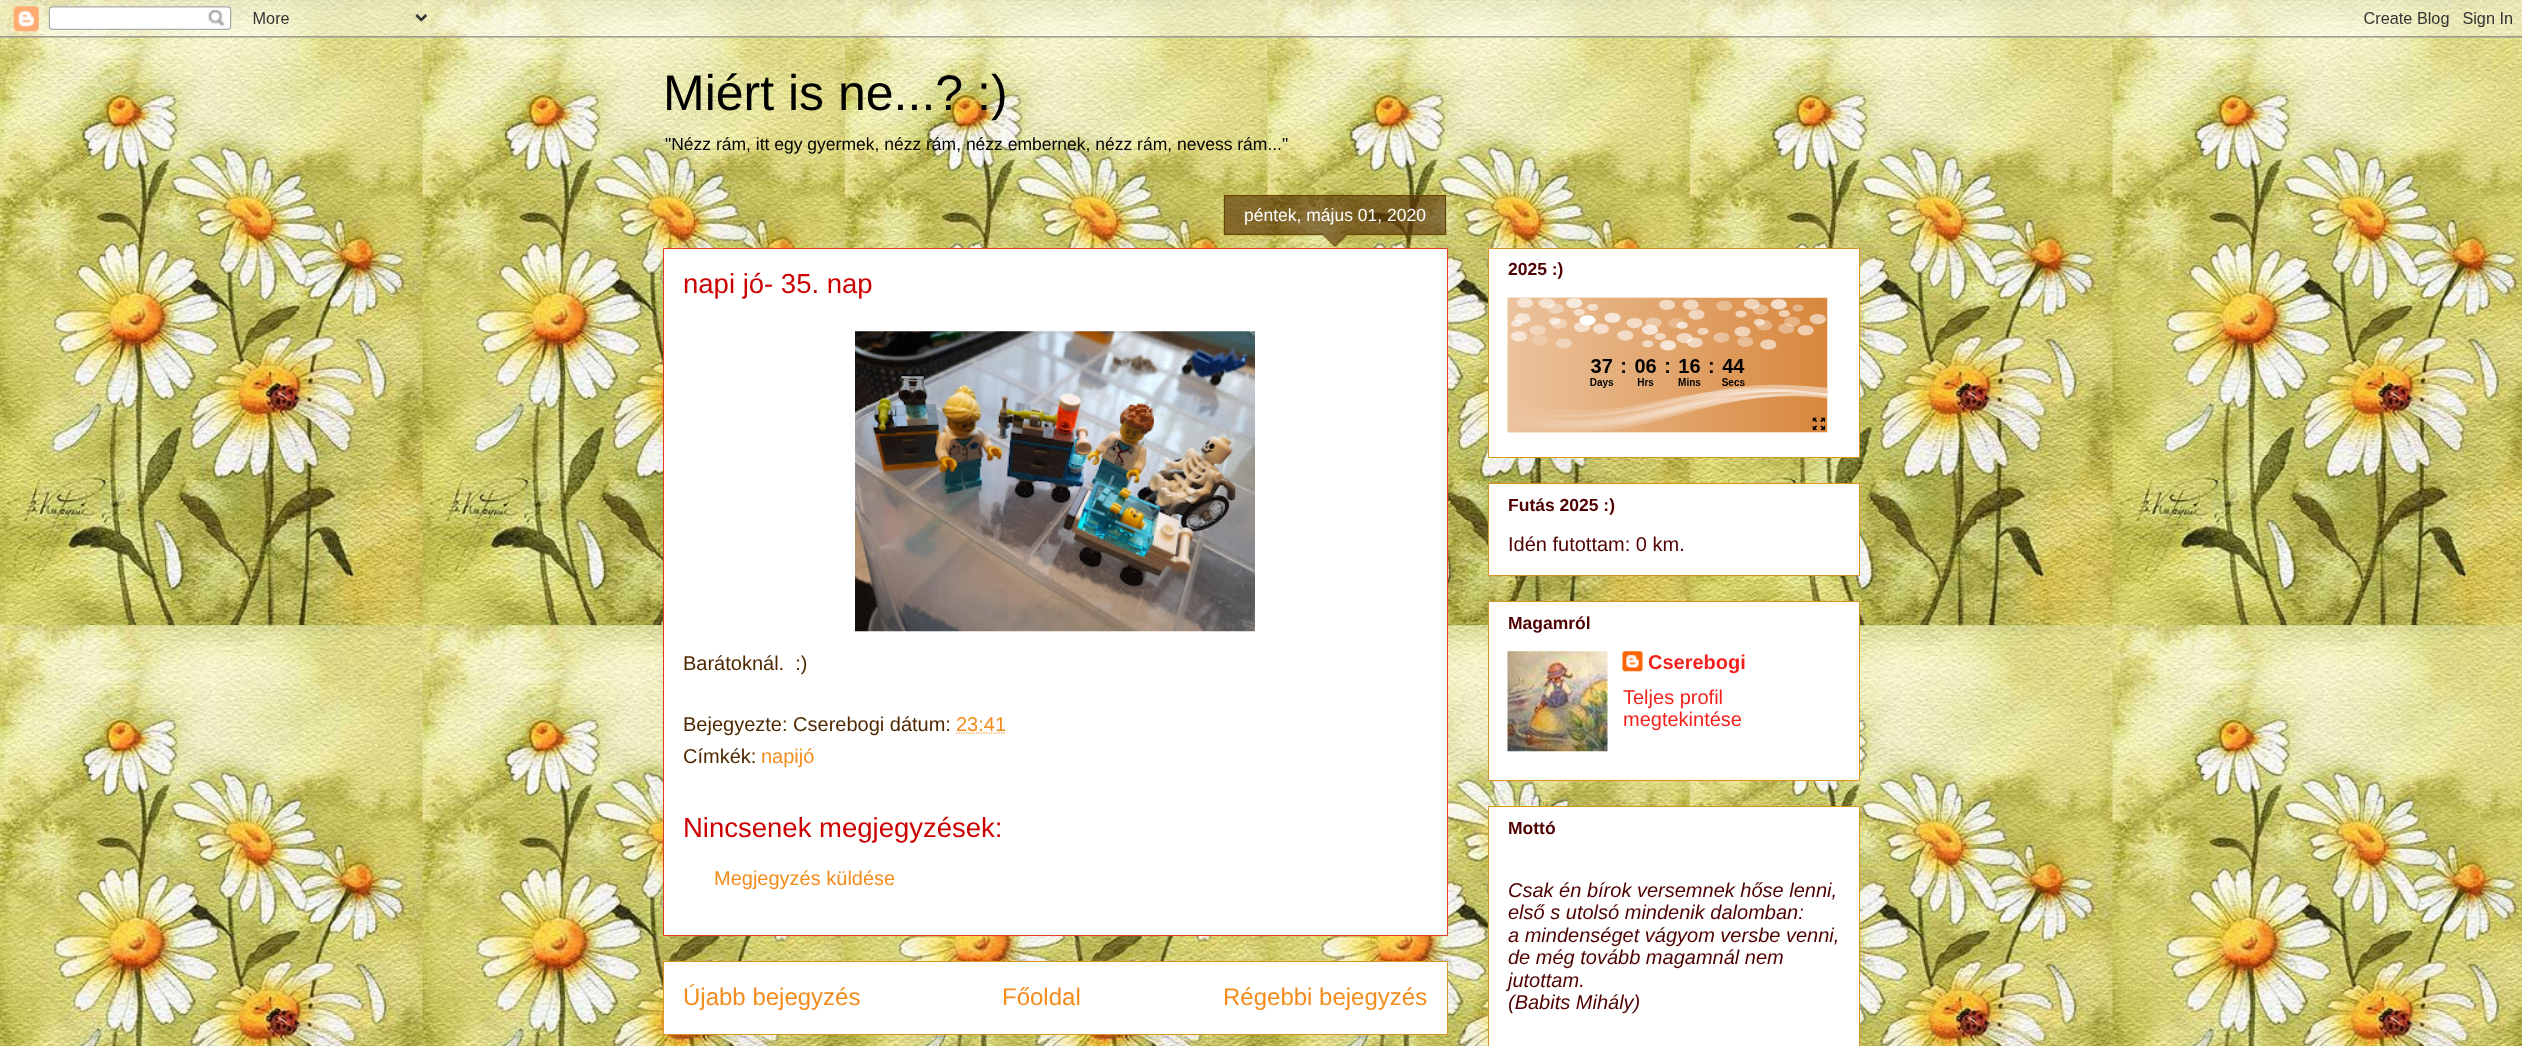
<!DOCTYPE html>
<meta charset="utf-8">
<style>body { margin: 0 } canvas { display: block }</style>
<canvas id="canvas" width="2522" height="1046"></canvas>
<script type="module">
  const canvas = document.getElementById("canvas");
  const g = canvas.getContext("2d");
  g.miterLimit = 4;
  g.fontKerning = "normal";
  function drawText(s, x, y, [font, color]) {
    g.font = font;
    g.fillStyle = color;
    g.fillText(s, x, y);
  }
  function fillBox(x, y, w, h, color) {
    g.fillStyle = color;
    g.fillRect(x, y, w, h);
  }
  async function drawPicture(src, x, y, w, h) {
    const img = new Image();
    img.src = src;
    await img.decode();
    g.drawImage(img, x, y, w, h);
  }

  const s1 = ["50px Liberation Sans", "#000000"];
  const s2 = ["17.5px Liberation Sans", "#000000"];
  const s3 = ["17.5px Liberation Sans", "#FFFFFF"];
  const s4 = ["27.5px Liberation Sans", "#CC0000"];
  const s5 = ["20px Liberation Sans", "#4E2800"];
  const s6 = ["20px Liberation Sans", "#F38C1C"];
  const s7 = ["24px Liberation Sans", "#F38C1C"];
  const s8 = ["bold 17.5px Liberation Sans", "#4E0000"];
  const s9 = ["20px Liberation Sans", "#4E0000"];
  const s10 = ["bold 20px Liberation Sans", "#F3211C"];
  const s11 = ["20px Liberation Sans", "#F3211C"];
  const s12 = ["italic 20px Liberation Sans", "#4E0000"];

  fillBox(0, 0, 2522, 1046, "#FFFFFF");
  await drawPicture("pic1.png", 0, 0, 2522, 1046);
  await drawPicture("pic2.png", 0, 0, 2522, 38);
  drawText("Miért is ne...? :)", 663, 110, s1);
  drawText("\"Nézz rám, itt egy gyermek, nézz rám, nézz embernek, nézz rám, nevess rám...\"", 665, 150, s2);
  g.fillStyle = "#FFFFFF";
  g.beginPath();
  g.rect(663.5, 248.5, 784, 687);
  g.fill();
  g.strokeStyle = "#DC3822";
  g.stroke();
  await drawPicture("pic3.png", 1223, 195, 224, 52);
  fillBox(1224, 195, 222, 1, "#664400");
  fillBox(1445, 196, 1, 38, "#664400");
  fillBox(1224, 196, 1, 38, "#664400");
  drawText("péntek, május 01, 2020", 1244, 221, s3);
  drawText("napi jó- 35. nap", 683, 293, s4);
  await drawPicture("pic4.png", 855, 331, 400, 301);
  drawText("Barátoknál.  :)", 683, 670, s5);
  drawText("Bejegyezte: Cserebogi dátum:", 683, 731, s5);
  drawText("23:41", 956, 731, s6);
  g.beginPath();
  g.moveTo(956, 733);
  g.lineTo(1006, 733);
  g.strokeStyle = "#F38C1C";
  g.lineWidth = 1.2;
  g.setLineDash([1.25, 1.25]);
  g.stroke();
  drawText("Címkék:", 683, 763, s5);
  drawText("napijó", 761, 763, s6);
  drawText("Nincsenek megjegyzések:", 683, 837, s4);
  drawText("Megjegyzés küldése", 714, 885, s6);
  g.fillStyle = "#FFFFFF";
  g.beginPath();
  g.rect(663.5, 961.5, 784, 73);
  g.fill();
  g.strokeStyle = "#DC9522";
  g.lineWidth = 1;
  g.setLineDash([]);
  g.stroke();
  drawText("Újabb bejegyzés", 683, 1005, s7);
  drawText("Főoldal", 1002, 1005, s7);
  drawText("Régebbi bejegyzés", 1223, 1005, s7);
  g.fillStyle = "#FFFFFF";
  g.beginPath();
  g.rect(1488.5, 248.5, 371, 209);
  g.fill();
  g.stroke();
  drawText("2025 :)", 1508, 275, s8);
  await drawPicture("pic5.png", 1507, 297, 321, 136);
  g.fillStyle = "#FFFFFF";
  g.beginPath();
  g.rect(1488.5, 483.5, 371, 92);
  g.fill();
  g.stroke();
  drawText("Futás 2025 :)", 1508, 511, s8);
  drawText("Idén futottam: 0 km.", 1508, 551, s9);
  g.fillStyle = "#FFFFFF";
  g.beginPath();
  g.rect(1488.5, 601.5, 371, 179);
  g.fill();
  g.stroke();
  drawText("Magamról", 1508, 629, s8);
  await drawPicture("pic6.png", 1507, 651, 101, 101);
  await drawPicture("pic7.png", 1622, 651, 21, 21);
  drawText("Cserebogi", 1648, 669, s10);
  drawText("Teljes profil", 1623, 704, s11);
  drawText("megtekintése", 1623, 726, s11);
  g.fillStyle = "#FFFFFF";
  g.beginPath();
  g.rect(1488.5, 806.5, 371, 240);
  g.fill();
  g.stroke();
  drawText("Mottó", 1508, 834, s8);
  drawText("Csak én bírok versemnek hőse lenni,", 1508, 897, s12);
  drawText("első s utolsó mindenik dalomban:", 1508, 919, s12);
  drawText("a mindenséget vágyom versbe venni,", 1508, 942, s12);
  drawText("de még tovább magamnál nem", 1508, 964, s12);
  drawText("jutottam.", 1508, 987, s12);
  drawText("(Babits Mihály)", 1508, 1009, s12);
</script>
